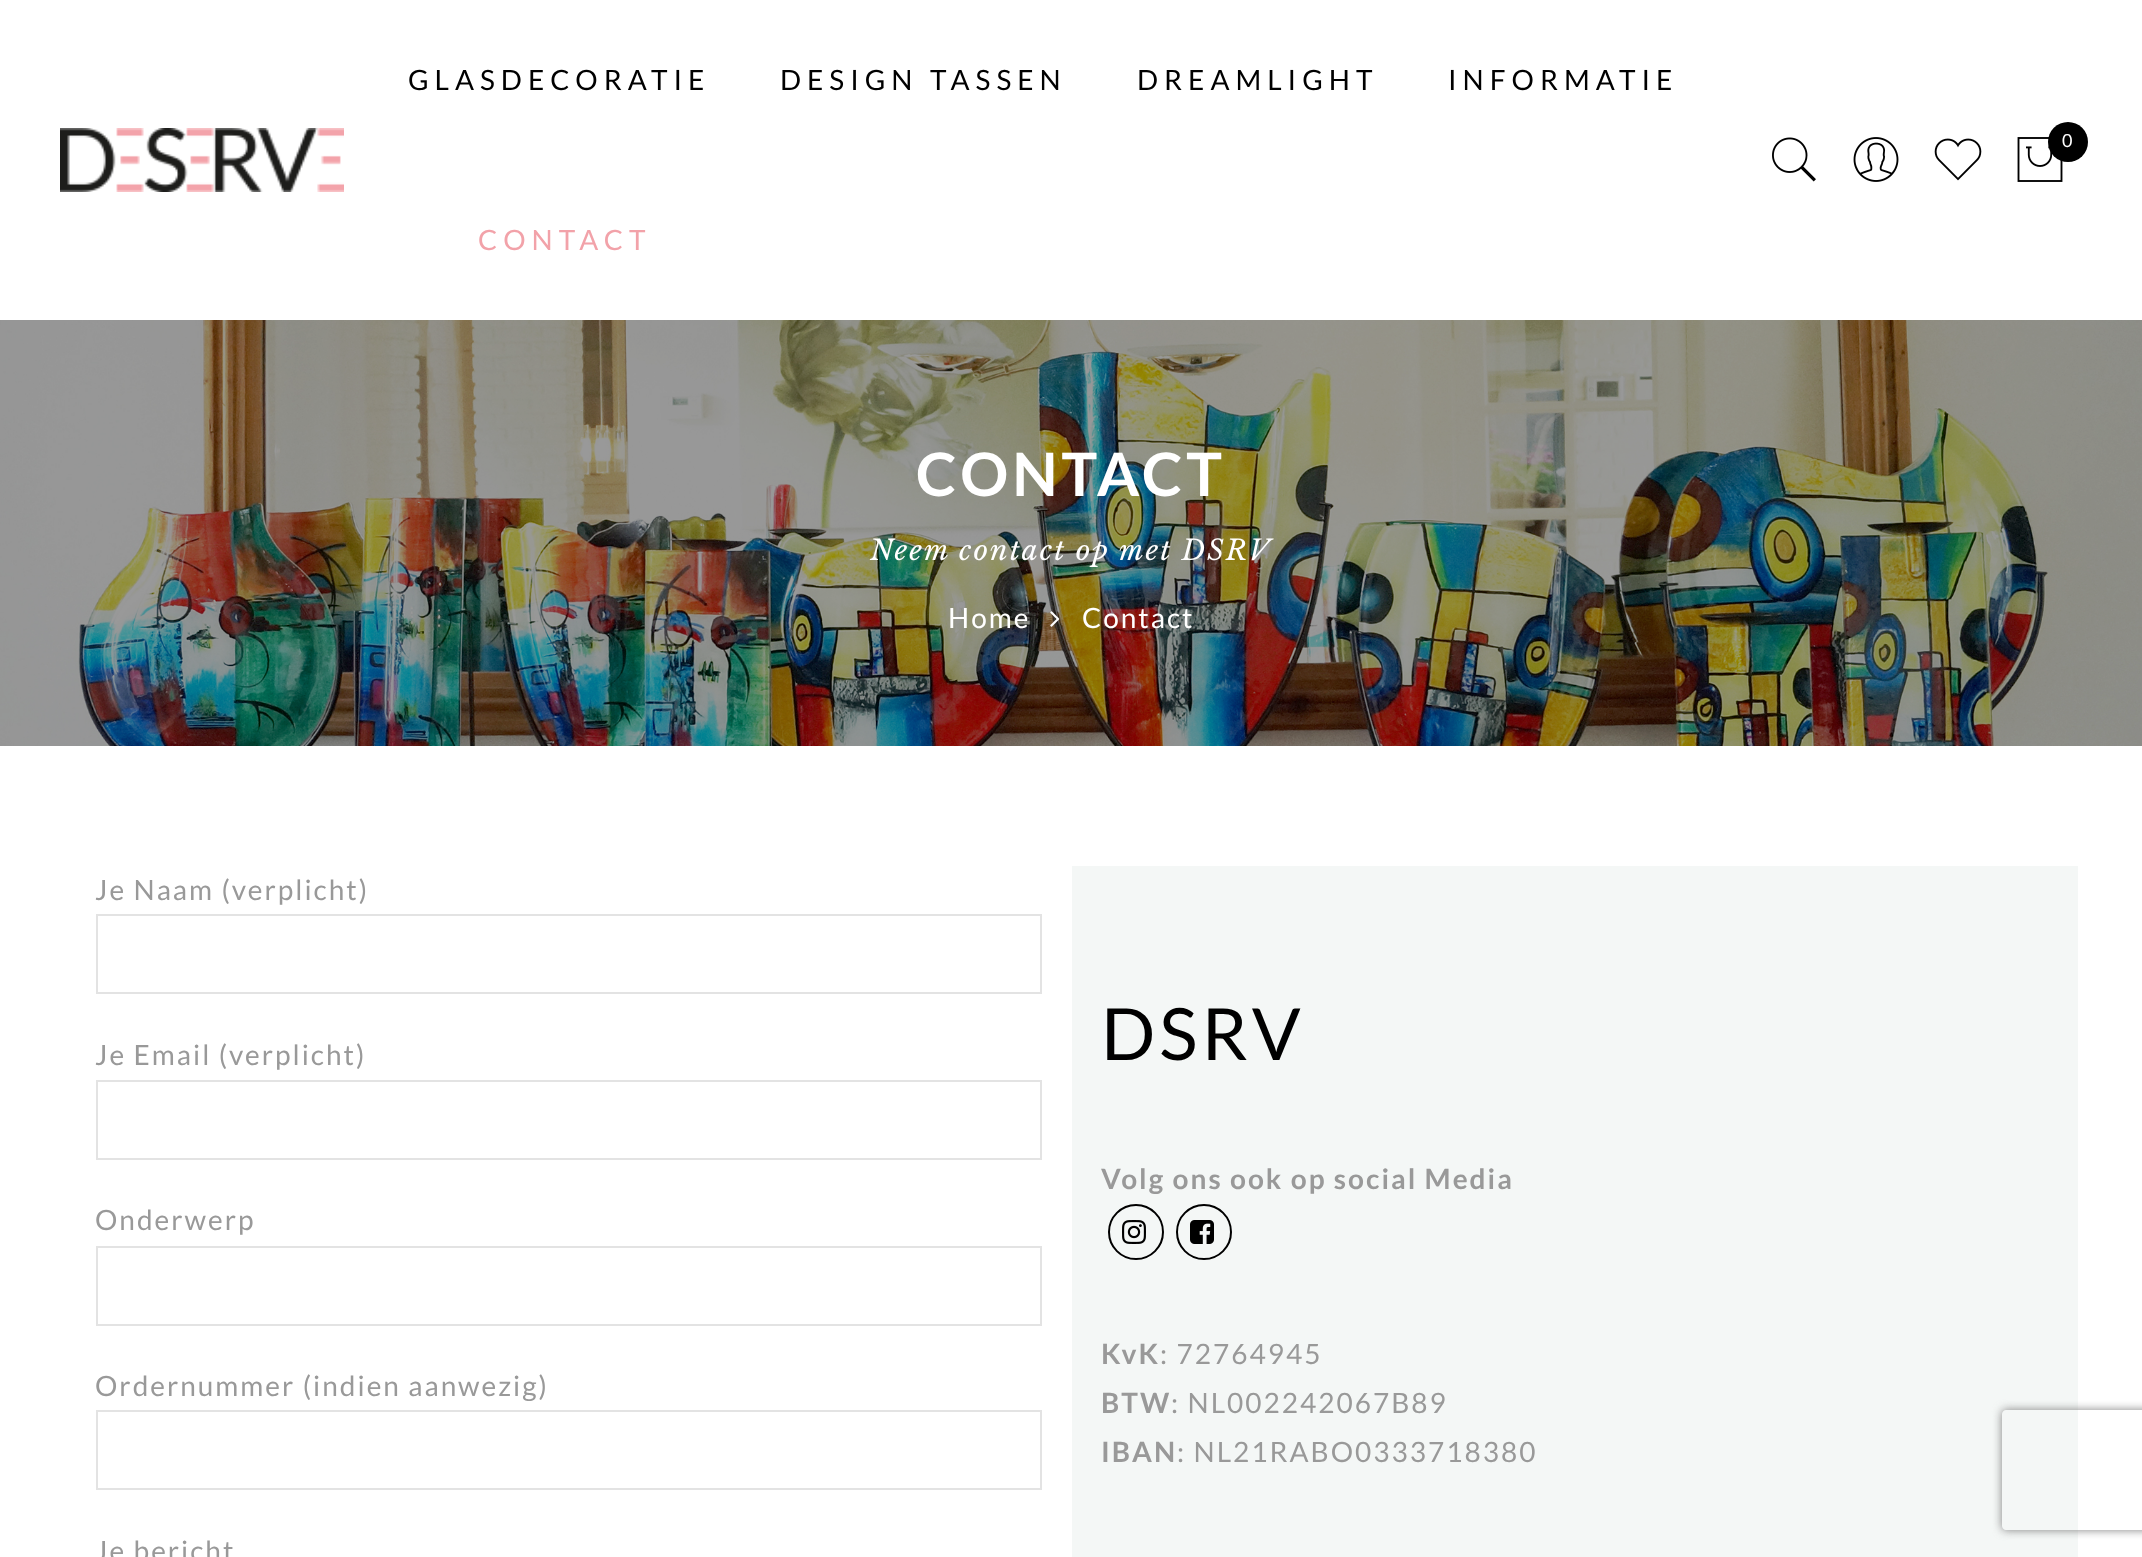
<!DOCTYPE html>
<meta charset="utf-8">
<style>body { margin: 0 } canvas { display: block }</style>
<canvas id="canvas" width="2142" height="1557"></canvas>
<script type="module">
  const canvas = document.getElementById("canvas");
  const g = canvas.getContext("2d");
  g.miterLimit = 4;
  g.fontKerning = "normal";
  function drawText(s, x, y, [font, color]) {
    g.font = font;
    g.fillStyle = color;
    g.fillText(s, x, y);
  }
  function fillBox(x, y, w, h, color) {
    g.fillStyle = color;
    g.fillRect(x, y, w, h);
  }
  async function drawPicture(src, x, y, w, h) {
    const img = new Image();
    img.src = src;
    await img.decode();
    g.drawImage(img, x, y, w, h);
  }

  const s1 = ["28px Lato", "#000000"];
  const s2 = ["28px Lato", "#F2A2A9"];
  const s3 = ["18px Lato", "#FFFFFF"];
  const s4 = ["bold 60px Lato", "#FFFFFF"];
  const s5 = ["italic 28px Libre Baskerville", "#FFFFFF"];
  const s6 = ["28px Lato", "#FFFFFF"];
  const s7 = ["28px Lato", "#999999"];
  const s8 = ["72px Lato", "#000000"];
  const s9 = ["bold 28px Lato", "#999999"];

  fillBox(0, 0, 2142, 1557, "#FFFFFF");
  await drawPicture("pic1.png", 60, 128, 284, 64);
  g.letterSpacing = "6px";
  drawText("GLASDECORATIE", 408, 90, s1);
  drawText("DESIGN TASSEN", 780, 90, s1);
  drawText("DREAMLIGHT", 1137, 90, s1);
  drawText("INFORMATIE", 1448, 90, s1);
  drawText("CONTACT", 478, 250, s2);
  await drawPicture("pic2.png", 1772, 137, 44, 45);
  await drawPicture("pic3.png", 1853, 137, 46, 45);
  await drawPicture("pic4.png", 1934, 138, 48, 43);
  await drawPicture("pic5.png", 2017, 137, 46, 45);
  g.fillStyle = "#000000";
  g.beginPath();
  g.arc(2068, 142, 20, 0, Math.PI * 2);
  g.fill();
  g.letterSpacing = "2px";
  drawText("0", 2062, 147, s3);
  await drawPicture("pic6.png", 0, 320, 2142, 426);
  g.letterSpacing = "4px";
  drawText("CONTACT", 916, 496, s4);
  g.letterSpacing = "2px";
  drawText("Neem contact op met DSRV", 870, 560, s5);
  drawText("Home", 948, 628, s6);
  await drawPicture("pic7.png", 1050, 611, 10, 16);
  drawText("Contact", 1082, 628, s6);
  drawText("Je Naam (verplicht)", 95, 900, s7);
  g.strokeStyle = "#E3E3E3";
  g.lineWidth = 2;
  g.strokeRect(97, 915, 944, 78);
  drawText("Je Email (verplicht)", 95, 1065, s7);
  g.strokeRect(97, 1081, 944, 78);
  drawText("Onderwerp", 95, 1230, s7);
  g.strokeRect(97, 1247, 944, 78);
  drawText("Ordernummer (indien aanwezig)", 95, 1396, s7);
  g.strokeRect(97, 1411, 944, 78);
  drawText("Je bericht", 95, 1561, s7);
  fillBox(1072, 866, 1006, 691, "#F4F7F6");
  g.letterSpacing = "4px";
  drawText("DSRV", 1101, 1060, s8);
  g.letterSpacing = "2px";
  drawText("Volg ons ook op social Media", 1101, 1189, s9);
  g.beginPath();
  g.arc(1136, 1232, 27, 0, Math.PI * 2);
  g.strokeStyle = "#000000";
  g.stroke();
  await drawPicture("pic8.png", 1122, 1220, 24, 24);
  g.beginPath();
  g.arc(1204, 1232, 27, 0, Math.PI * 2);
  g.stroke();
  await drawPicture("pic9.png", 1190, 1220, 24, 24);
  drawText("KvK", 1101, 1364, s9);
  drawText(": 72764945", 1160, 1364, s7);
  drawText("BTW", 1101, 1413, s9);
  drawText(": NL002242067B89", 1171, 1413, s7);
  drawText("IBAN", 1101, 1462, s9);
  drawText(": NL21RABO0333718380", 1177, 1462, s7);
  g.save();
  g.beginPath();
  g.moveTo(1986, 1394);
  g.lineTo(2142, 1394);
  g.lineTo(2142, 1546);
  g.lineTo(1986, 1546);
  g.closePath();
  g.moveTo(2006, 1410);
  g.lineTo(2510, 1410);
  g.bezierCurveTo(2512, 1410, 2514, 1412, 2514, 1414);
  g.lineTo(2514, 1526);
  g.bezierCurveTo(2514, 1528, 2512, 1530, 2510, 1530);
  g.lineTo(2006, 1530);
  g.bezierCurveTo(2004, 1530, 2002, 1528, 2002, 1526);
  g.lineTo(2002, 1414);
  g.bezierCurveTo(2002, 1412, 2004, 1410, 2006, 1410);
  g.closePath();
  g.clip("evenodd");
  g.fillStyle = "#808080";
  g.filter = "blur(5px)";
  g.beginPath();
  g.roundRect(2002, 1410, 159, 120, 4);
  g.fill();
  g.filter = "none";
  g.restore();
</script>
